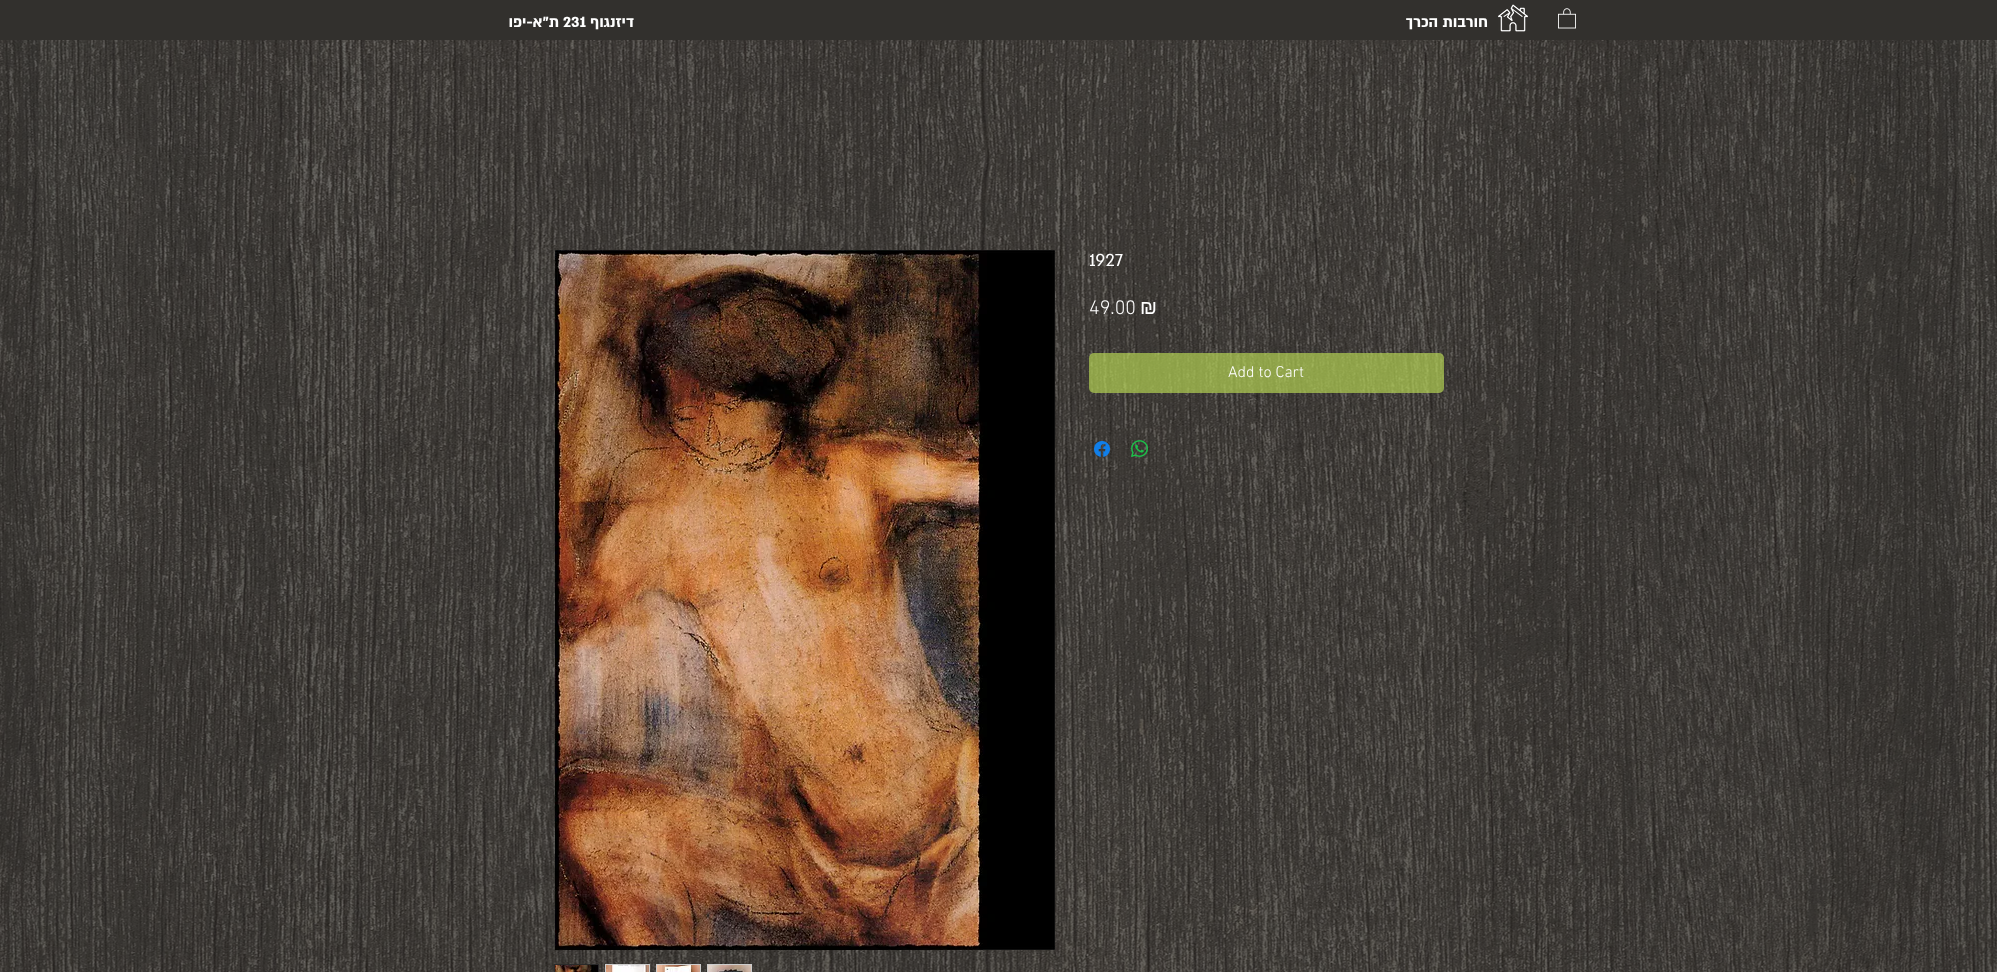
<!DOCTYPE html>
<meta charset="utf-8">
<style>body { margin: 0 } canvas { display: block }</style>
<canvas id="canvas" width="1997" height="972"></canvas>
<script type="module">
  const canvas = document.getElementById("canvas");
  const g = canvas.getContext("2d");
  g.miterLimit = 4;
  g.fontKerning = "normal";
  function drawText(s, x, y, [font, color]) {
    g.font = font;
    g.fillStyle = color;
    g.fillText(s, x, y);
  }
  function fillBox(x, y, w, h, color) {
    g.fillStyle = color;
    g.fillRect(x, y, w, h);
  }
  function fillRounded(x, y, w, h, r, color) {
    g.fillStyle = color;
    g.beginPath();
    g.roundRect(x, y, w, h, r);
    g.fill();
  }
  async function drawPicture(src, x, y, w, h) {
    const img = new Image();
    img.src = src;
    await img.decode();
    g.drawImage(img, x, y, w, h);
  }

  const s1 = ["bold 17px 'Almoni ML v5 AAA'", "#FFFFFF"];
  const s2 = ["20px 'Almoni ML v5 AAA'", "#FFFFFF"];
  const s3 = ["20px Liberation Sans", "#FFFFFF"];
  const s4 = ["300 20px 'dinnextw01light'", "#FFFFFF"];
  const s5 = ["300 16px 'dinnextw01light'", "#FFFFFF"];

  fillBox(0, 0, 1997, 972, "#32302D");
  await drawPicture("pic1.png", 1558, 8, 18, 21);
  await drawPicture("pic2.png", 1498, 4, 30, 28);
  g.direction = "rtl";
  drawText("חורבות הכרך", 1488, 27, s1);
  drawText("דיזנגוף", 634, 27, s1);
  g.direction = "ltr";
  drawText("231", 563, 27, s1);
  g.direction = "rtl";
  drawText("ת\"א-יפו", 559, 27, s1);
  await drawPicture("pic10.png", 0, 40, 1997, 932);
  g.direction = "ltr";
  drawText("1927", 1089, 266, s2);
  drawText("₪", 1140, 314, s3);
  drawText("49.00", 1089, 314, s4);
  fillRounded(1089, 353, 355, 40, 5, "rgba(186, 218, 85, 0.66)");
  drawText("Add to Cart", 1228, 377, s5);
  await drawPicture("pic3.png", 1131, 440, 17, 17);
  await drawPicture("pic4.png", 1094, 441, 16, 16);
  await drawPicture("pic5.png", 555, 250, 500, 700);
  fillBox(707, 964, 45, 8, "#CCCCCC");
  await drawPicture("pic6.png", 708, 965, 43, 7);
  fillBox(656, 964, 45, 8, "#CCCCCC");
  await drawPicture("pic7.png", 657, 965, 43, 7);
  fillBox(605, 964, 45, 8, "#CCCCCC");
  await drawPicture("pic8.png", 606, 965, 43, 7);
  g.strokeStyle = "#2A2A2A";
  g.strokeRect(554.5, 964.5, 44, 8);
  await drawPicture("pic9.png", 555, 965, 43, 7);
</script>
